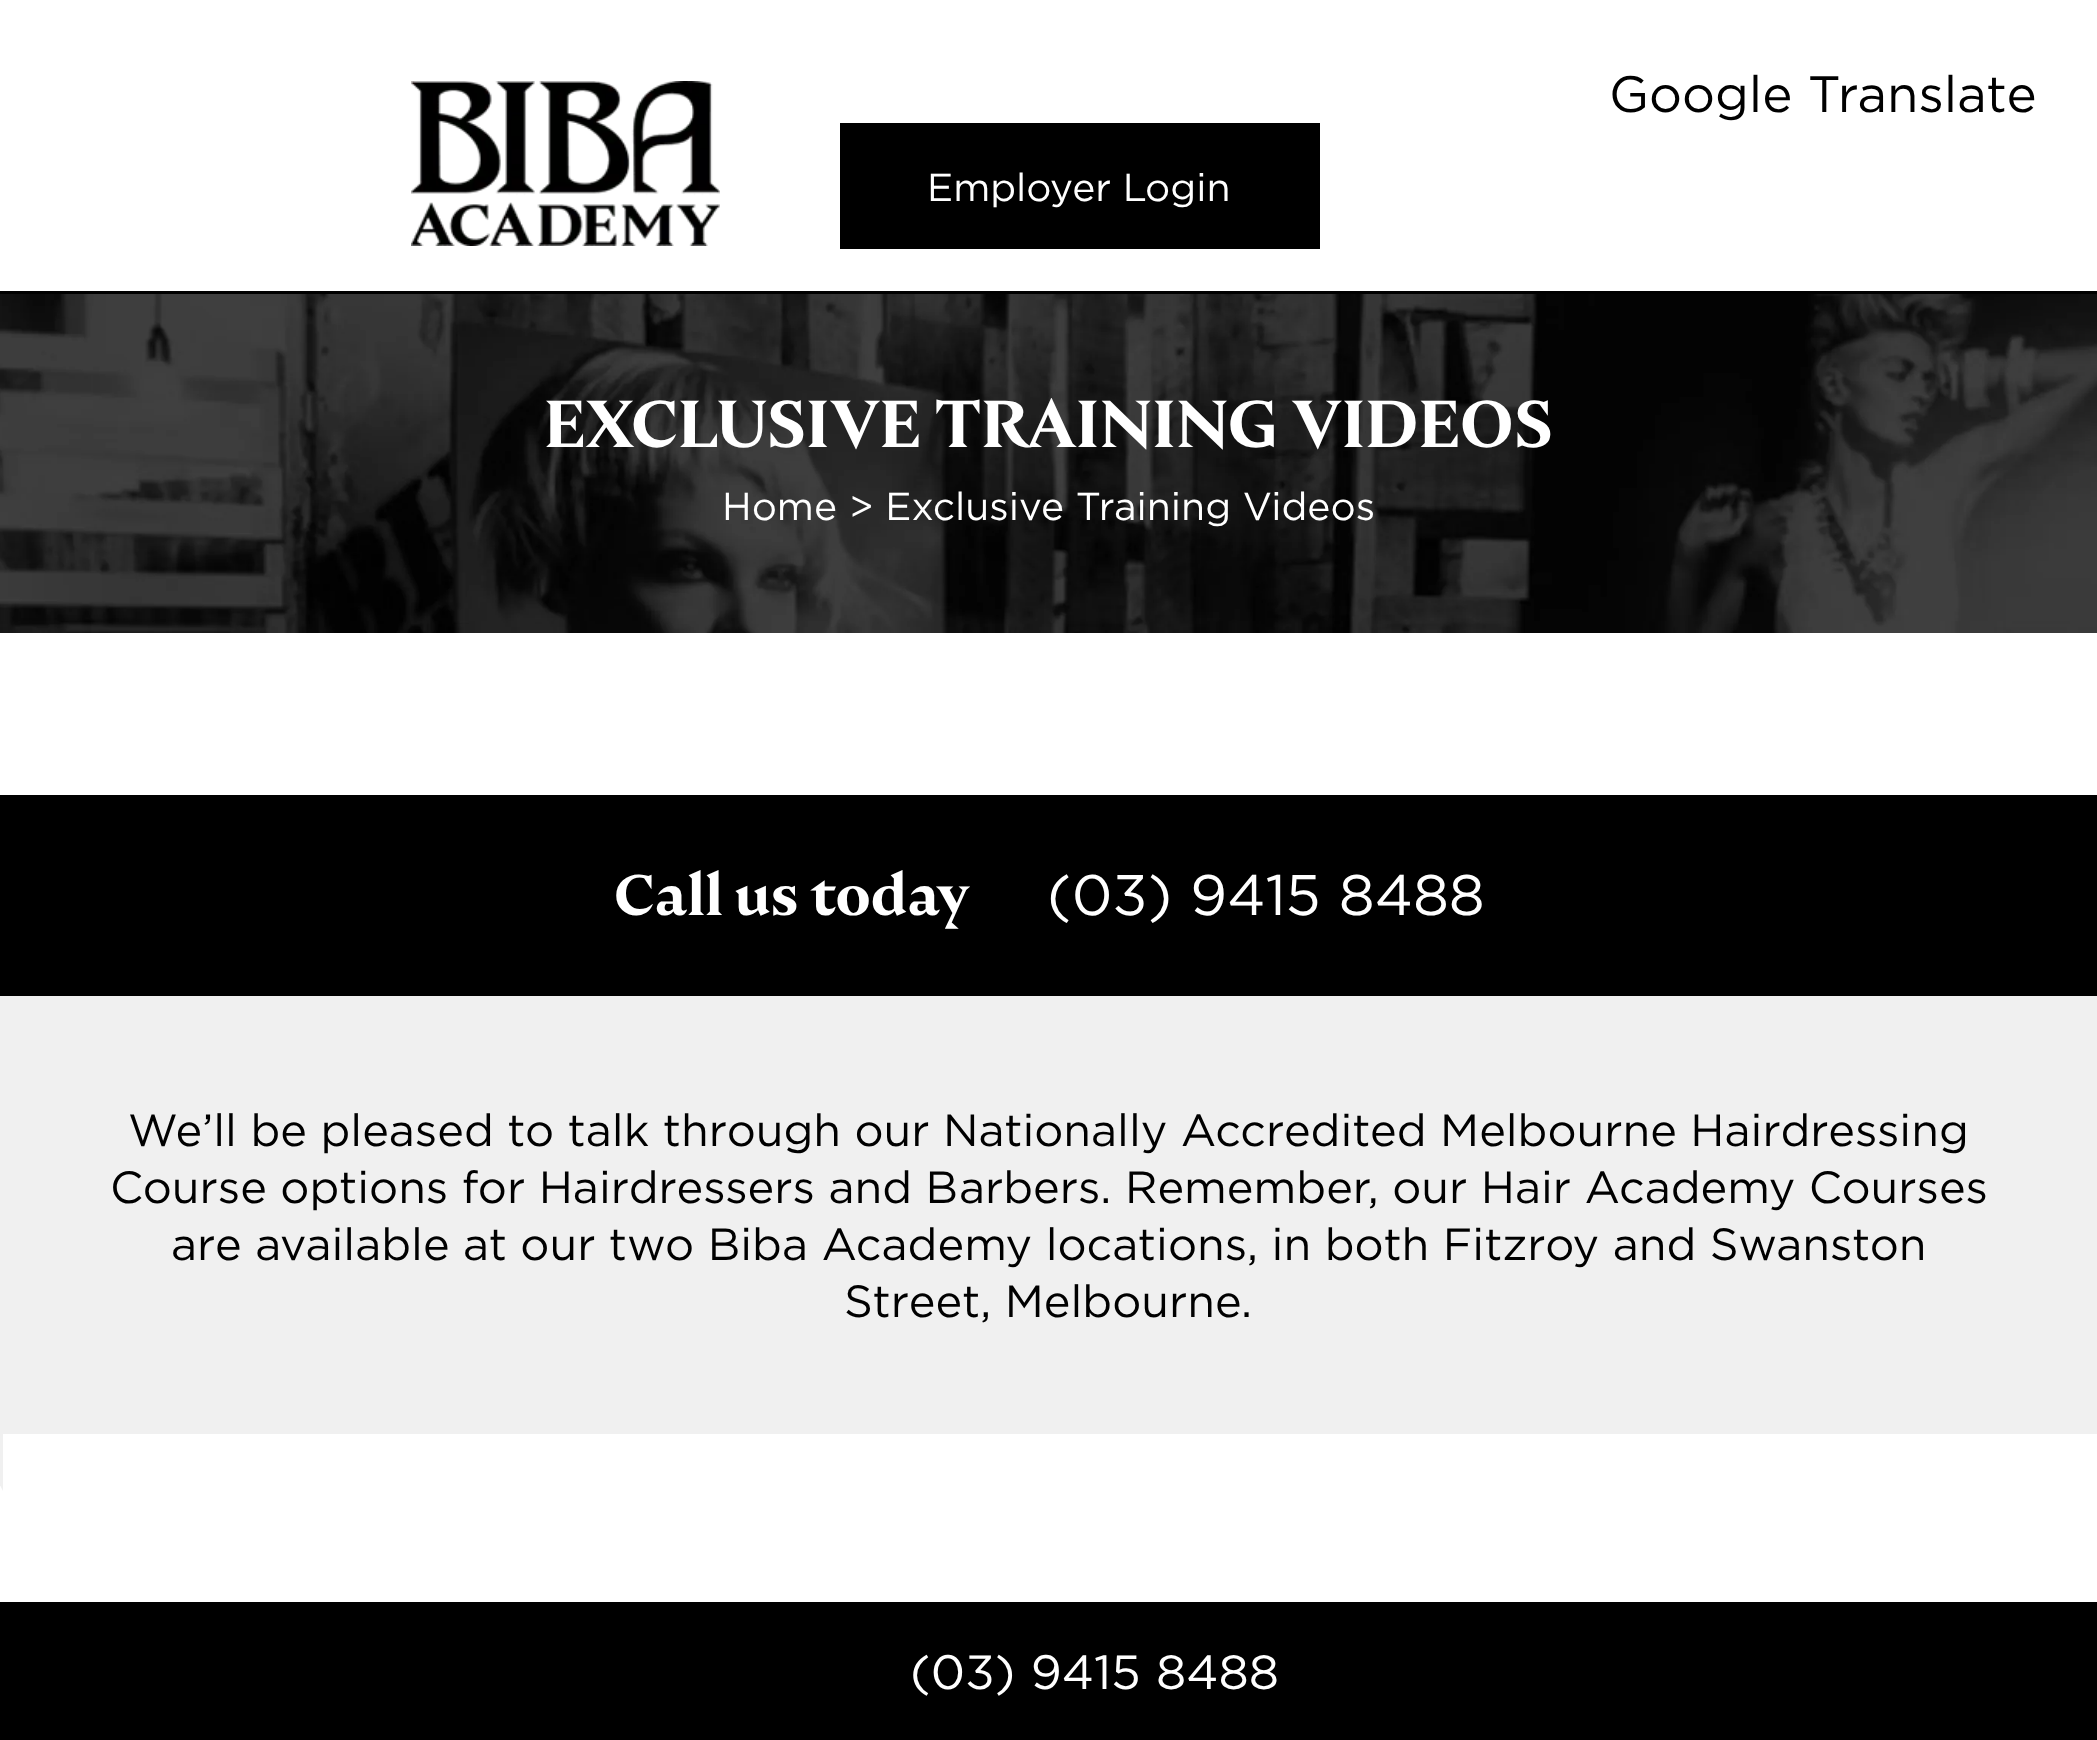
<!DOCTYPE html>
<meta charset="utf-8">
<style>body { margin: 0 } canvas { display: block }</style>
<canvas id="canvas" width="2097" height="1740"></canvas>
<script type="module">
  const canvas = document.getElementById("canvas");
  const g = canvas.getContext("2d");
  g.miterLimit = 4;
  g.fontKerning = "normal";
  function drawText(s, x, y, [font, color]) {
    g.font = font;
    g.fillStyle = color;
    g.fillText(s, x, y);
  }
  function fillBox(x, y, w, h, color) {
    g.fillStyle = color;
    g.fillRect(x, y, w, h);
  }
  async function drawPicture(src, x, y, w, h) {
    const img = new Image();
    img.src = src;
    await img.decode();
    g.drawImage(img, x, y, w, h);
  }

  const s1 = ["39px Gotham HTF", "#FFFFFF"];
  const s2 = ["51px Gotham HTF", "#000000"];
  const s3 = ["600 66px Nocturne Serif", "#FFFFFF"];
  const s4 = ["600 57px Nocturne Serif", "#FFFFFF"];
  const s5 = ["57px Gotham HTF", "#FFFFFF"];
  const s6 = ["45px Gotham HTF", "#000000"];
  const s7 = ["48px Gotham HTF", "#FFFFFF"];

  fillBox(0, 0, 2097, 1740, "#FFFFFF");
  fillBox(0, 291, 2097, 3, "#000000");
  await drawPicture("pic1.png", 411, 81, 309, 165);
  fillBox(840, 123, 480, 126, "#000000");
  drawText("Employer Login", 927, 201, s1);
  drawText("Google Translate", 1609, 112, s2);
  await drawPicture("pic2.png", 0, 294, 2097, 339);
  drawText("EXCLUSIVE TRAINING VIDEOS", 544, 447, s3);
  drawText("Home > Exclusive Training Videos", 722, 520, s1);
  fillBox(0, 795, 2097, 201, "#000000");
  drawText("Call us today", 614, 915, s4);
  g.wordSpacing = "1px";
  drawText("(03) 9415 8488", 1047, 915, s5);
  fillBox(3, 996, 2094, 438, "#F0F0F0");
  g.beginPath();
  g.moveTo(3, 996);
  g.lineTo(3, 1491);
  g.lineTo(-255, 996);
  g.closePath();
  g.fill();
  g.wordSpacing = "0px";
  drawText("We’ll be pleased to talk through our Nationally Accredited Melbourne Hairdressing", 128, 1146, s6);
  drawText("Course options for Hairdressers and Barbers. Remember, our Hair Academy Courses", 110, 1203, s6);
  drawText("are available at our two Biba Academy locations, in both Fitzroy and Swanston", 171, 1260, s6);
  drawText("Street, Melbourne.", 844, 1317, s6);
  fillBox(0, 1602, 2097, 138, "#000000");
  g.wordSpacing = "1px";
  drawText("(03) 9415 8488", 910, 1689, s7);
</script>
